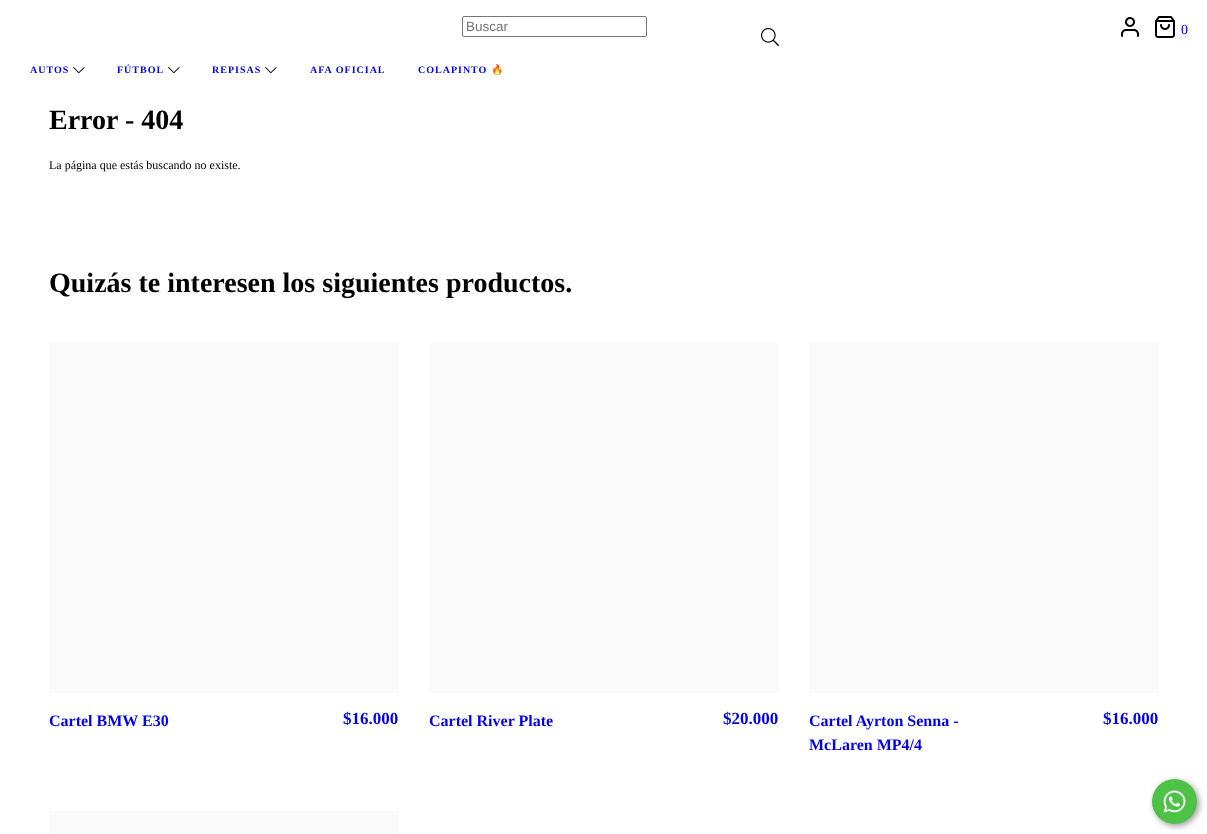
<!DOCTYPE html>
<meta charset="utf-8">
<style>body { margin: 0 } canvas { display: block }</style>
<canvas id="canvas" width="1207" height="834"></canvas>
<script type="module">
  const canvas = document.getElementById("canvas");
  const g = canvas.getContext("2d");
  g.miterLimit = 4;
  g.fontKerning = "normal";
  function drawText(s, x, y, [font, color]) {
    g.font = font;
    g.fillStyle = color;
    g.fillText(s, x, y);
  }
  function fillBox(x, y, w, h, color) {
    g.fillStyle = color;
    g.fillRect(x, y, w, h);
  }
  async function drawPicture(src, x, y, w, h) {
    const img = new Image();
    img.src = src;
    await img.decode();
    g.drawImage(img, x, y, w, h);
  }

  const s1 = ["13.5px Liberation Sans", "#757575"];
  const s2 = ["14px Liberation Serif", "#0000EE"];
  const s3 = ["bold 10px Liberation Serif", "#0000EE"];
  const s4 = ["bold 10px Noto Color Emoji", "#0000EE"];
  const s5 = ["bold 28px Liberation Serif", "#000000"];
  const s6 = ["12px Liberation Serif", "#000000"];
  const s7 = ["bold 16px Liberation Serif", "#0000EE"];
  const s8 = ["bold 17px Liberation Serif", "#0000EE"];

  fillBox(0, 0, 1207, 834, "#FFFFFF");
  g.beginPath();
  g.roundRect(462.5, 16.5, 184, 20, 1.5);
  g.strokeStyle = "#767676";
  g.stroke();
  drawText("Buscar", 466, 31, s1);
  await drawPicture("pic1.png", 761, 28, 18, 18);
  await drawPicture("pic2.png", 1121, 17, 18, 20);
  await drawPicture("pic3.png", 1155, 16, 20, 22);
  drawText("0", 1181, 34, s2);
  g.letterSpacing = "1px";
  drawText("AUTOS", 30, 73, s3);
  await drawPicture("pic4.png", 73, 67, 12, 7);
  drawText("FÚTBOL", 117, 73, s3);
  await drawPicture("pic4.png", 168, 67, 12, 7);
  drawText("REPISAS", 212, 73, s3);
  await drawPicture("pic4.png", 265, 67, 12, 7);
  drawText("AFA OFICIAL", 310, 73, s3);
  drawText("COLAPINTO", 418, 73, s3);
  drawText("🔥", 491, 73, s4);
  g.letterSpacing = "0px";
  drawText("Error - 404", 49, 129, s5);
  drawText("La página que estás buscando no existe.", 49, 169, s6);
  drawText("Quizás te interesen los siguientes productos.", 49, 292, s5);
  fillBox(49, 343, 350, 350, "#FAFAFA");
  drawText("Cartel BMW E30", 49, 726, s7);
  drawText("$16.000", 343, 724, s8);
  fillBox(429, 343, 350, 350, "#FAFAFA");
  drawText("Cartel River Plate", 429, 726, s7);
  drawText("$20.000", 723, 724, s8);
  fillBox(809, 343, 350, 350, "#FAFAFA");
  drawText("Cartel Ayrton Senna -", 809, 726, s7);
  drawText("McLaren MP4/4", 809, 750, s7);
  drawText("$16.000", 1103, 724, s8);
  fillBox(49, 811, 350, 23, "#FAFAFA");
  g.fillStyle = "rgba(0, 0, 0, 0.4)";
  g.filter = "blur(3px)";
  g.beginPath();
  g.roundRect(1154, 781, 45, 45, 22.5);
  g.fill();
  g.filter = "none";
  g.fillStyle = "#4DC247";
  g.beginPath();
  g.arc(1174.5, 801.5, 22.5, 0, Math.PI * 2);
  g.fill();
  await drawPicture("pic5.png", 1163, 790, 23, 23);
</script>
